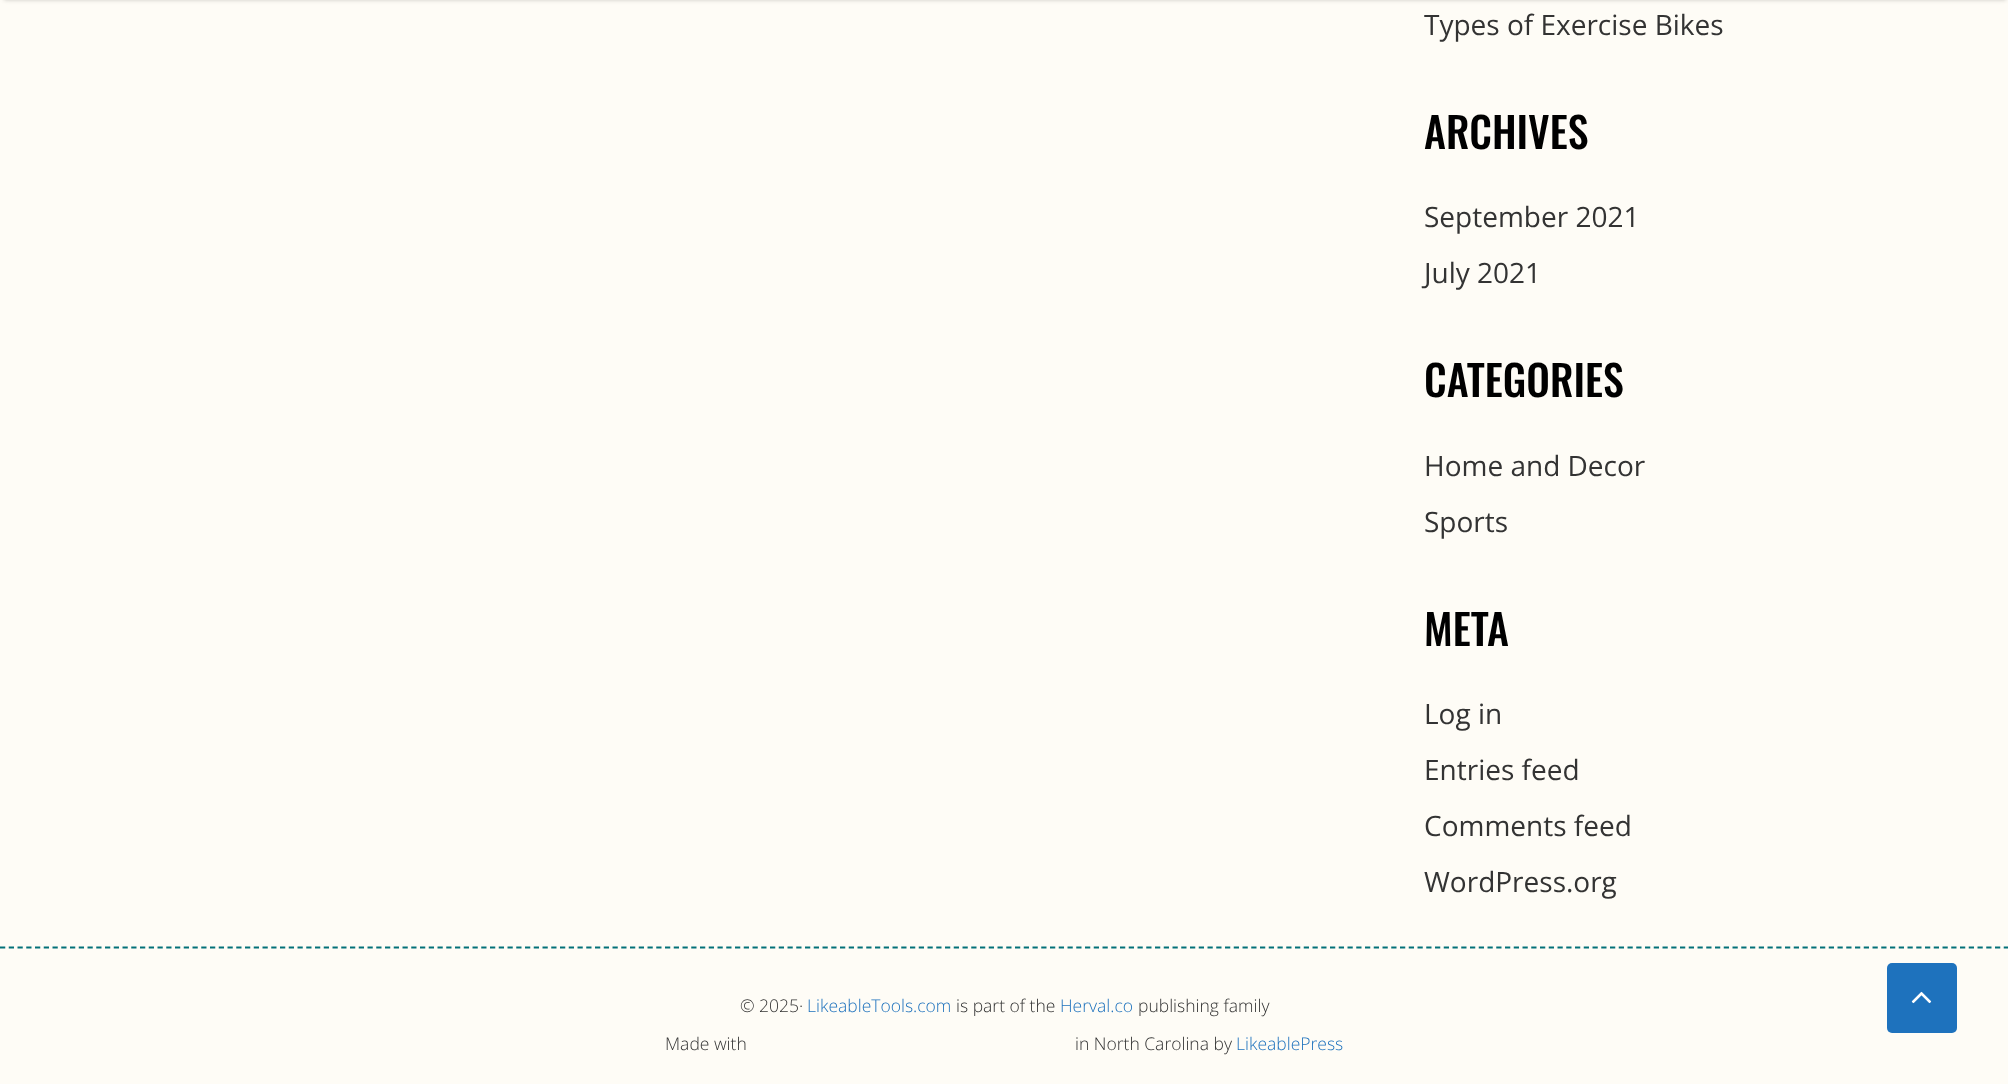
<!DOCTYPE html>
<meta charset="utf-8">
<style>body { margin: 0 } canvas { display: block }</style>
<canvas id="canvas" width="2008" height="1084"></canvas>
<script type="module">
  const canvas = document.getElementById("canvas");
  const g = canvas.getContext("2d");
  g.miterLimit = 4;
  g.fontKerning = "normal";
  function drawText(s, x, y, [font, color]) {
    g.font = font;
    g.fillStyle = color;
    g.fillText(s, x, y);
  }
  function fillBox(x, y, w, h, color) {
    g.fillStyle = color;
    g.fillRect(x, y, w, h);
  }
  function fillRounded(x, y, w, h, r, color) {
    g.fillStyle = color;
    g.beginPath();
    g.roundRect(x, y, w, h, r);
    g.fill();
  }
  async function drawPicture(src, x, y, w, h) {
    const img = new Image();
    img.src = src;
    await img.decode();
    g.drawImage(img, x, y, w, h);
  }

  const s1 = ["28px Open Sans", "#333333"];
  const s2 = ["500 42px Oswald", "#000000"];
  const s3 = ["300 17.5px Open Sans", "#333333"];
  const s4 = ["300 17.5px Open Sans", "#1E72BD"];

  fillBox(0, 0, 2008, 1084, "#FEFCF6");
  g.fillStyle = "rgba(0, 0, 0, 0.2)";
  g.filter = "blur(2px)";
  g.beginPath();
  g.rect(4, -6, 2002, 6);
  g.fill();
  g.filter = "none";
  drawText("Types of Exercise Bikes", 1424, 35, s1);
  drawText("ARCHIVES", 1424, 149, s2);
  drawText("September 2021", 1424, 227, s1);
  drawText("July 2021", 1424, 283, s1);
  drawText("CATEGORIES", 1424, 397, s2);
  drawText("Home and Decor", 1424, 476, s1);
  drawText("Sports", 1424, 532, s1);
  drawText("META", 1424, 646, s2);
  drawText("Log in", 1424, 724, s1);
  drawText("Entries feed", 1424, 780, s1);
  drawText("Comments feed", 1424, 836, s1);
  drawText("WordPress.org", 1424, 892, s1);
  g.beginPath();
  g.moveTo(0, 947.5);
  g.lineTo(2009, 947.5);
  g.strokeStyle = "#027078";
  g.lineWidth = 1.8;
  g.setLineDash([5.25, 3.5]);
  g.stroke();
  drawText("© 2025·", 740, 1012, s3);
  drawText("LikeableTools.com", 807, 1012, s4);
  drawText("is part of the", 956, 1012, s3);
  drawText("Herval.co", 1060, 1012, s4);
  drawText("publishing family", 1138, 1012, s3);
  drawText("Made with", 665, 1050, s3);
  drawText("in North Carolina by", 1075, 1050, s3);
  drawText("LikeablePress", 1236, 1050, s4);
  fillRounded(1887, 963, 70, 70, 5, "#1E72BD");
  await drawPicture("pic1.png", 1911, 991, 21, 13);
</script>
